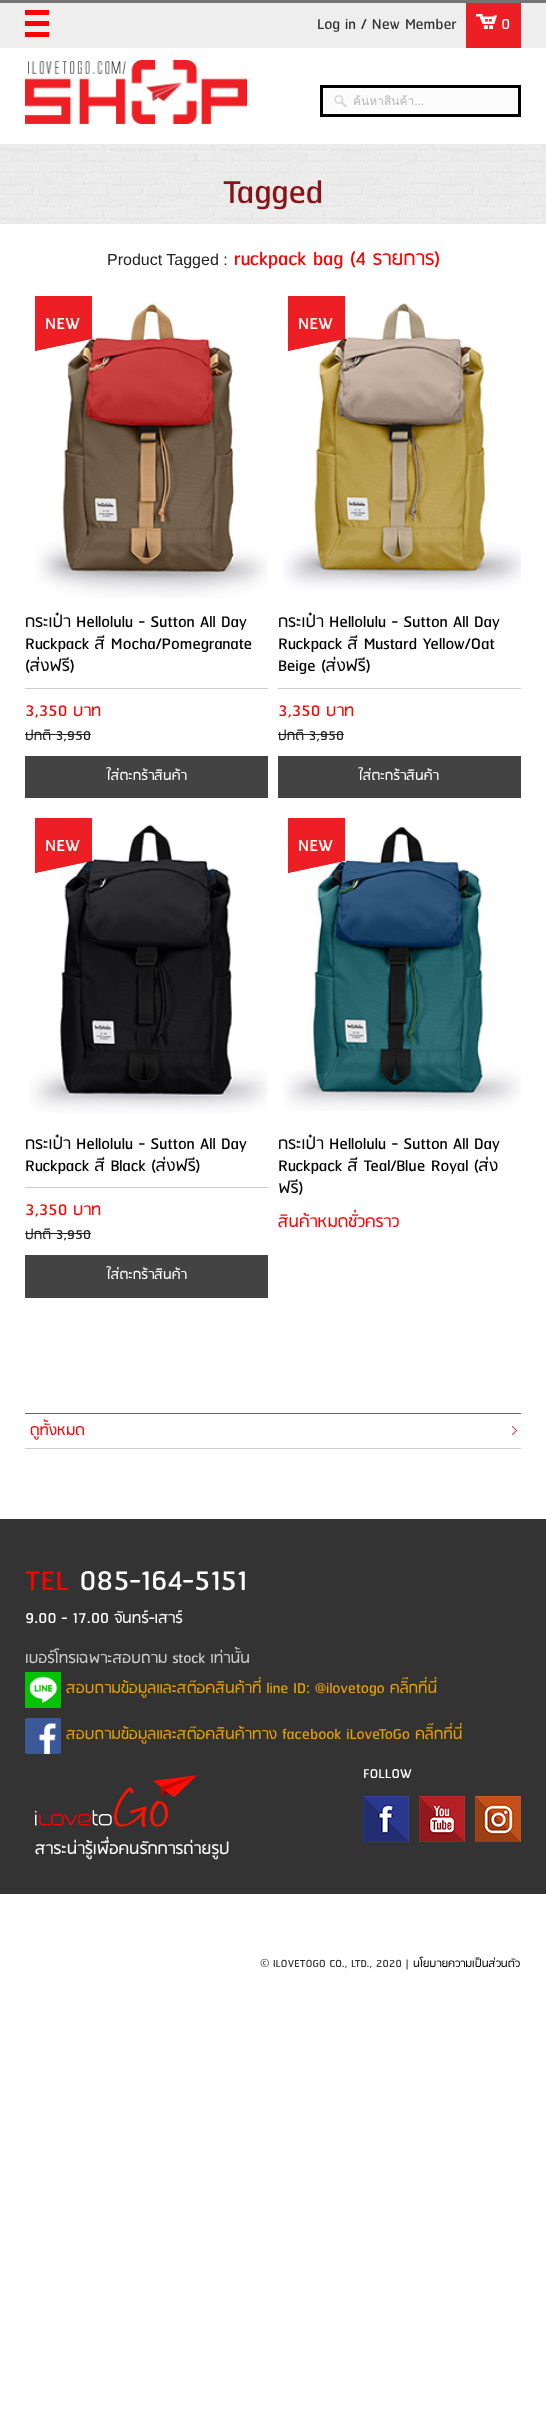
<!DOCTYPE html>
<meta charset="utf-8">
<style>body { margin: 0 } canvas { display: block }</style>
<canvas id="canvas" width="546" height="2431"></canvas>
<script type="module">
  const canvas = document.getElementById("canvas");
  const g = canvas.getContext("2d");
  g.miterLimit = 4;
  g.fontKerning = "normal";
  function drawText(s, x, y, [font, color]) {
    g.font = font;
    g.fillStyle = color;
    g.fillText(s, x, y);
  }
  function fillBox(x, y, w, h, color) {
    g.fillStyle = color;
    g.fillRect(x, y, w, h);
  }
  async function drawPicture(src, x, y, w, h) {
    const img = new Image();
    img.src = src;
    await img.decode();
    g.drawImage(img, x, y, w, h);
  }

  const s1 = ["18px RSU", "#333333"];
  const s2 = ["18px RSU", "#FFFFFF"];
  const s3 = ["12px Loma", "#B6B6B6"];
  const s4 = ["40px RSU", "#881417"];
  const s5 = ["16px Liberation Sans", "#222222"];
  const s6 = ["23.25px RSU", "#FF0000"];
  const s7 = ["19.25px RSU", "#000000"];
  const s8 = ["19.25px RSU", "#FF0000"];
  const s9 = ["16px RSU", "#222222"];
  const s10 = ["16px RSU", "#FFFFFF"];
  const s11 = ["17.5px RSU", "#FF0000"];
  const s12 = ["33.75px RSU", "#FF0000"];
  const s13 = ["33.75px RSU", "#FFFFFF"];
  const s14 = ["18px RSU", "#CCCCCC"];
  const s15 = ["18px RSU", "#E49E09"];
  const s16 = ["19.25px RSU", "#FFFFFF"];
  const s17 = ["12.75px RSU", "#333333"];
  const s18 = ["12.75px RSU", "#000000"];

  fillBox(0, 0, 546, 2431, "#FFFFFF");
  fillBox(0, 3, 546, 45, "#EEEEEE");
  fillBox(0, 0, 546, 3, "#747474");
  await drawPicture("pic1.png", 25, 10, 24, 27);
  drawText("Log in / New Member", 317, 29, s1);
  fillBox(466, 3, 55, 45, "#ED1F24");
  await drawPicture("pic2.png", 476, 14, 21, 15);
  drawText("0", 501, 29, s2);
  await drawPicture("pic3.png", 25, 60, 222, 64);
  fillBox(323, 88, 195, 26, "#FCFCFC");
  await drawPicture("pic4.png", 334, 95, 13, 13);
  g.strokeStyle = "#000000";
  g.lineWidth = 3;
  g.strokeRect(321.5, 86.5, 198, 29);
  g.save();
  g.beginPath();
  g.rect(353, 91, 155, 19);
  g.clip();
  drawText("ค้นหาสินค้า...", 353, 105, s3);
  g.restore();
  await drawPicture("pic5.png", 0, 144, 546, 80);
  drawText("Tagged", 223, 203, s4);
  drawText("Product Tagged :", 107, 265, s5);
  drawText("ruckpack bag (4 รายการ)", 234, 265, s6);
  await drawPicture("pic7.png", 35, 301, 233, 297);
  await drawPicture("pic6.png", 35, 296, 57, 55);
  await drawPicture("pic8.png", 35, 317, 56, 34);
  drawText("กระเป๋า Hellolulu - Sutton All Day", 25, 627, s7);
  drawText("Ruckpack สี Mocha/Pomegranate", 25, 649, s7);
  drawText("(ส่งฟรี)", 25, 671, s7);
  fillBox(25, 688, 243, 1, "#CCCCCC");
  drawText("3,350 บาท", 25, 716, s8);
  drawText("ปกติ 3,950", 25, 740, s9);
  fillBox(25, 734, 66, 1, "#222222");
  fillBox(25, 756, 243, 42, "#434343");
  drawText("ใส่ตะกร้าสินค้า", 107, 780, s10);
  await drawPicture("pic10.png", 282, 303, 239, 287);
  await drawPicture("pic9.png", 288, 296, 57, 55);
  await drawPicture("pic11.png", 288, 317, 56, 34);
  drawText("กระเป๋า Hellolulu - Sutton All Day", 278, 627, s7);
  drawText("Ruckpack สี Mustard Yellow/Oat", 278, 649, s7);
  drawText("Beige (ส่งฟรี)", 278, 671, s7);
  fillBox(278, 688, 243, 1, "#CCCCCC");
  drawText("3,350 บาท", 278, 716, s8);
  drawText("ปกติ 3,950", 278, 740, s9);
  fillBox(278, 734, 66, 1, "#222222");
  fillBox(278, 756, 243, 42, "#434343");
  drawText("ใส่ตะกร้าสินค้า", 359, 780, s10);
  await drawPicture("pic13.png", 30, 824, 238, 289);
  await drawPicture("pic12.png", 35, 818, 57, 55);
  await drawPicture("pic14.png", 35, 839, 56, 34);
  drawText("กระเป๋า Hellolulu - Sutton All Day", 25, 1149, s7);
  drawText("Ruckpack สี Black (ส่งฟรี)", 25, 1171, s7);
  fillBox(25, 1187, 243, 1, "#CCCCCC");
  drawText("3,350 บาท", 25, 1215, s8);
  drawText("ปกติ 3,950", 25, 1239, s9);
  fillBox(25, 1233, 66, 1, "#222222");
  fillBox(25, 1255, 243, 43, "#434343");
  drawText("ใส่ตะกร้าสินค้า", 107, 1279, s10);
  await drawPicture("pic16.png", 283, 827, 238, 284);
  await drawPicture("pic15.png", 288, 818, 57, 55);
  await drawPicture("pic17.png", 288, 839, 56, 34);
  drawText("กระเป๋า Hellolulu - Sutton All Day", 278, 1149, s7);
  drawText("Ruckpack สี Teal/Blue Royal (ส่ง", 278, 1171, s7);
  drawText("ฟรี)", 278, 1193, s7);
  drawText("สินค้าหมดชั่วคราว", 278, 1227, s8);
  fillBox(25, 1413, 496, 1, "#666666");
  fillBox(25, 1448, 496, 1, "#CCCCCC");
  await drawPicture("pic18.png", 512, 1426, 6, 9);
  drawText("ดูทั้งหมด", 30, 1435, s11);
  fillBox(0, 1519, 546, 375, "#333333");
  drawText("TEL", 25, 1590, s12);
  drawText("085-164-5151", 79, 1590, s13);
  drawText("9.00 - 17.00 จันทร์-เสาร์", 25, 1623, s2);
  drawText("เบอร์โทรเฉพาะสอบถาม stock เท่านั้น", 25, 1663, s14);
  await drawPicture("pic19.png", 25, 1672, 36, 36);
  drawText("สอบถามข้อมูลและสต๊อคสินค้าที่ line ID: @ilovetogo คลิ๊กที่นี่", 66, 1693, s15);
  await drawPicture("pic20.png", 25, 1718, 36, 36);
  drawText("สอบถามข้อมูลและสต๊อคสินค้าทาง facebook iLoveToGo คลิ๊กที่นี่", 66, 1739, s15);
  drawText("FOLLOW", 363, 1778, s10);
  await drawPicture("pic21.png", 363, 1796, 46, 46);
  await drawPicture("pic22.png", 419, 1796, 46, 46);
  await drawPicture("pic23.png", 475, 1796, 46, 46);
  await drawPicture("pic24.png", 35, 1775, 163, 52);
  drawText("สาระน่ารู้เพื่อคนรักการถ่ายรูป", 35, 1854, s16);
  drawText("© ILOVETOGO CO., LTD., 2020 |", 260, 1967, s17);
  drawText("นโยบายความเป็นส่วนตัว", 413, 1967, s18);
</script>
